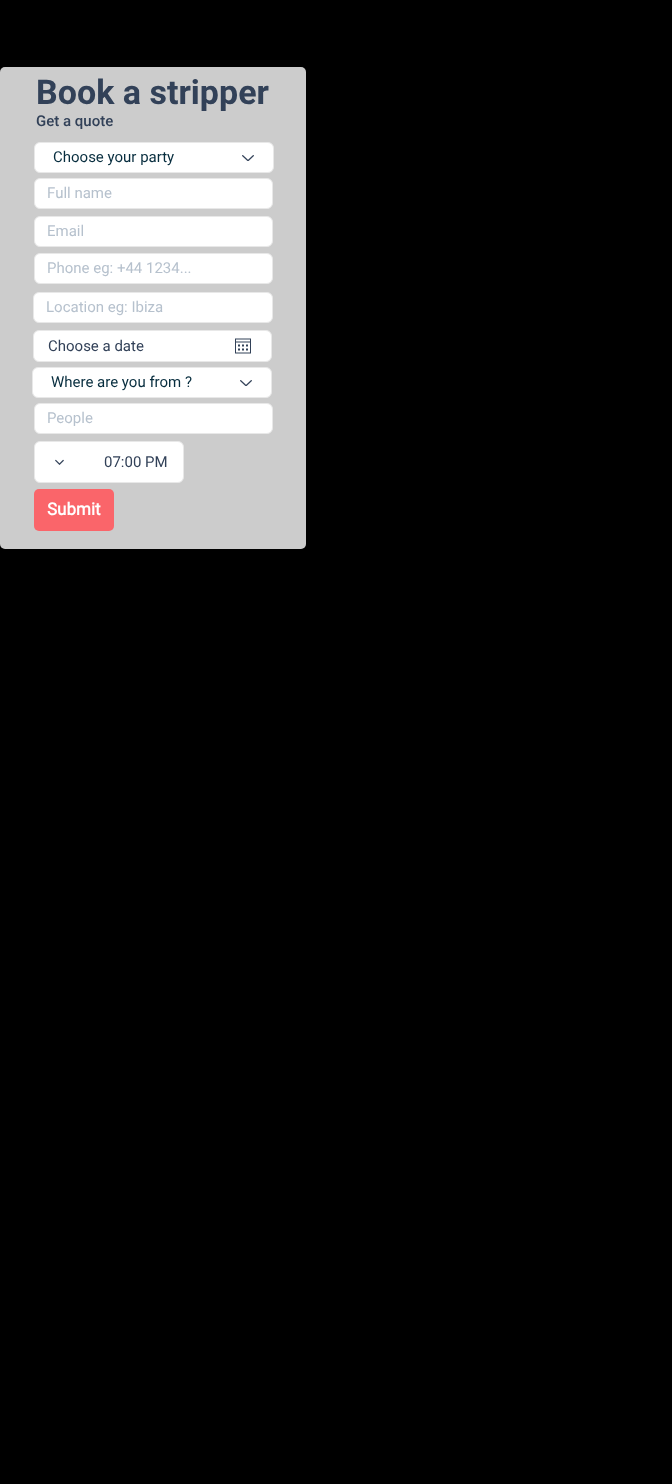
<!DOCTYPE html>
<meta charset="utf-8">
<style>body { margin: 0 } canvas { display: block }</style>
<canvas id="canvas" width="672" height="1484"></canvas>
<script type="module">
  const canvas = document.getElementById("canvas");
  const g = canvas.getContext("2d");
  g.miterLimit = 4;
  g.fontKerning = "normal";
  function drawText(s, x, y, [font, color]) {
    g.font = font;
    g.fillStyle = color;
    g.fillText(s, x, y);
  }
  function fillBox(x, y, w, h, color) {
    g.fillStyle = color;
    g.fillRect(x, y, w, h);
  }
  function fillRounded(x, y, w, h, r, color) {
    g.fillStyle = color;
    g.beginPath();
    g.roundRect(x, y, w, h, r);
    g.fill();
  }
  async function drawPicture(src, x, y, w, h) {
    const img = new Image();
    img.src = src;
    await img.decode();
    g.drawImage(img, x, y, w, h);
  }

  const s1 = ["bold 34px Roboto", "#324158"];
  const s2 = ["500 15px Roboto", "#324158"];
  const s3 = ["15px Roboto", "#072D3E"];
  const s4 = ["15px Roboto", "#B6C1CD"];
  const s5 = ["15px Roboto", "#324158"];
  const s6 = ["bold 17px 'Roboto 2'", "#FFFFFF"];

  fillBox(0, 0, 672, 1484, "#000000");
  fillRounded(0, 67, 306, 482, 5, "#CCCCCC");
  drawText("Book a stripper", 36, 104, s1);
  drawText("Get a quote", 36, 126, s2);
  g.fillStyle = "#FFFFFF";
  g.beginPath();
  g.roundRect(34.5, 142.5, 239, 30, 5.5);
  g.fill();
  g.strokeStyle = "#E8E8E8";
  g.stroke();
  drawText("Choose your party", 53, 162, s3);
  await drawPicture("pic1.png", 242, 155, 12, 6);
  g.fillStyle = "#FFFFFF";
  g.beginPath();
  g.roundRect(34.5, 178.5, 238, 30, 5.5);
  g.fill();
  g.stroke();
  drawText("Full name", 47, 198, s4);
  g.fillStyle = "#FFFFFF";
  g.beginPath();
  g.roundRect(34.5, 216.5, 238, 30, 5.5);
  g.fill();
  g.stroke();
  drawText("Email", 47, 236, s4);
  g.fillStyle = "#FFFFFF";
  g.beginPath();
  g.roundRect(34.5, 253.5, 238, 30, 5.5);
  g.fill();
  g.stroke();
  drawText("Phone eg: +44 1234...", 47, 273, s4);
  g.fillStyle = "#FFFFFF";
  g.beginPath();
  g.roundRect(33.5, 292.5, 239, 30, 5.5);
  g.fill();
  g.stroke();
  drawText("Location eg: Ibiza", 46, 312, s4);
  g.fillStyle = "#FFFFFF";
  g.beginPath();
  g.roundRect(33.5, 330.5, 238, 31, 5.5);
  g.fill();
  g.stroke();
  drawText("Choose a date", 48, 351, s5);
  await drawPicture("pic2.png", 235, 338, 16, 16);
  g.fillStyle = "#FFFFFF";
  g.beginPath();
  g.roundRect(32.5, 367.5, 239, 30, 5.5);
  g.fill();
  g.stroke();
  drawText("Where are you from ?", 51, 387, s3);
  await drawPicture("pic1.png", 240, 380, 12, 6);
  g.fillStyle = "#FFFFFF";
  g.beginPath();
  g.roundRect(34.5, 403.5, 238, 30, 5.5);
  g.fill();
  g.stroke();
  drawText("People", 47, 423, s4);
  g.fillStyle = "#FFFFFF";
  g.beginPath();
  g.roundRect(34.5, 441.5, 149, 41, 5.5);
  g.fill();
  g.stroke();
  await drawPicture("pic3.png", 55, 459, 9, 6);
  drawText("07:00 PM", 104, 467, s5);
  fillRounded(34, 489, 80, 42, 5, "#FA656A");
  drawText("Submit", 47, 515, s6);
</script>
